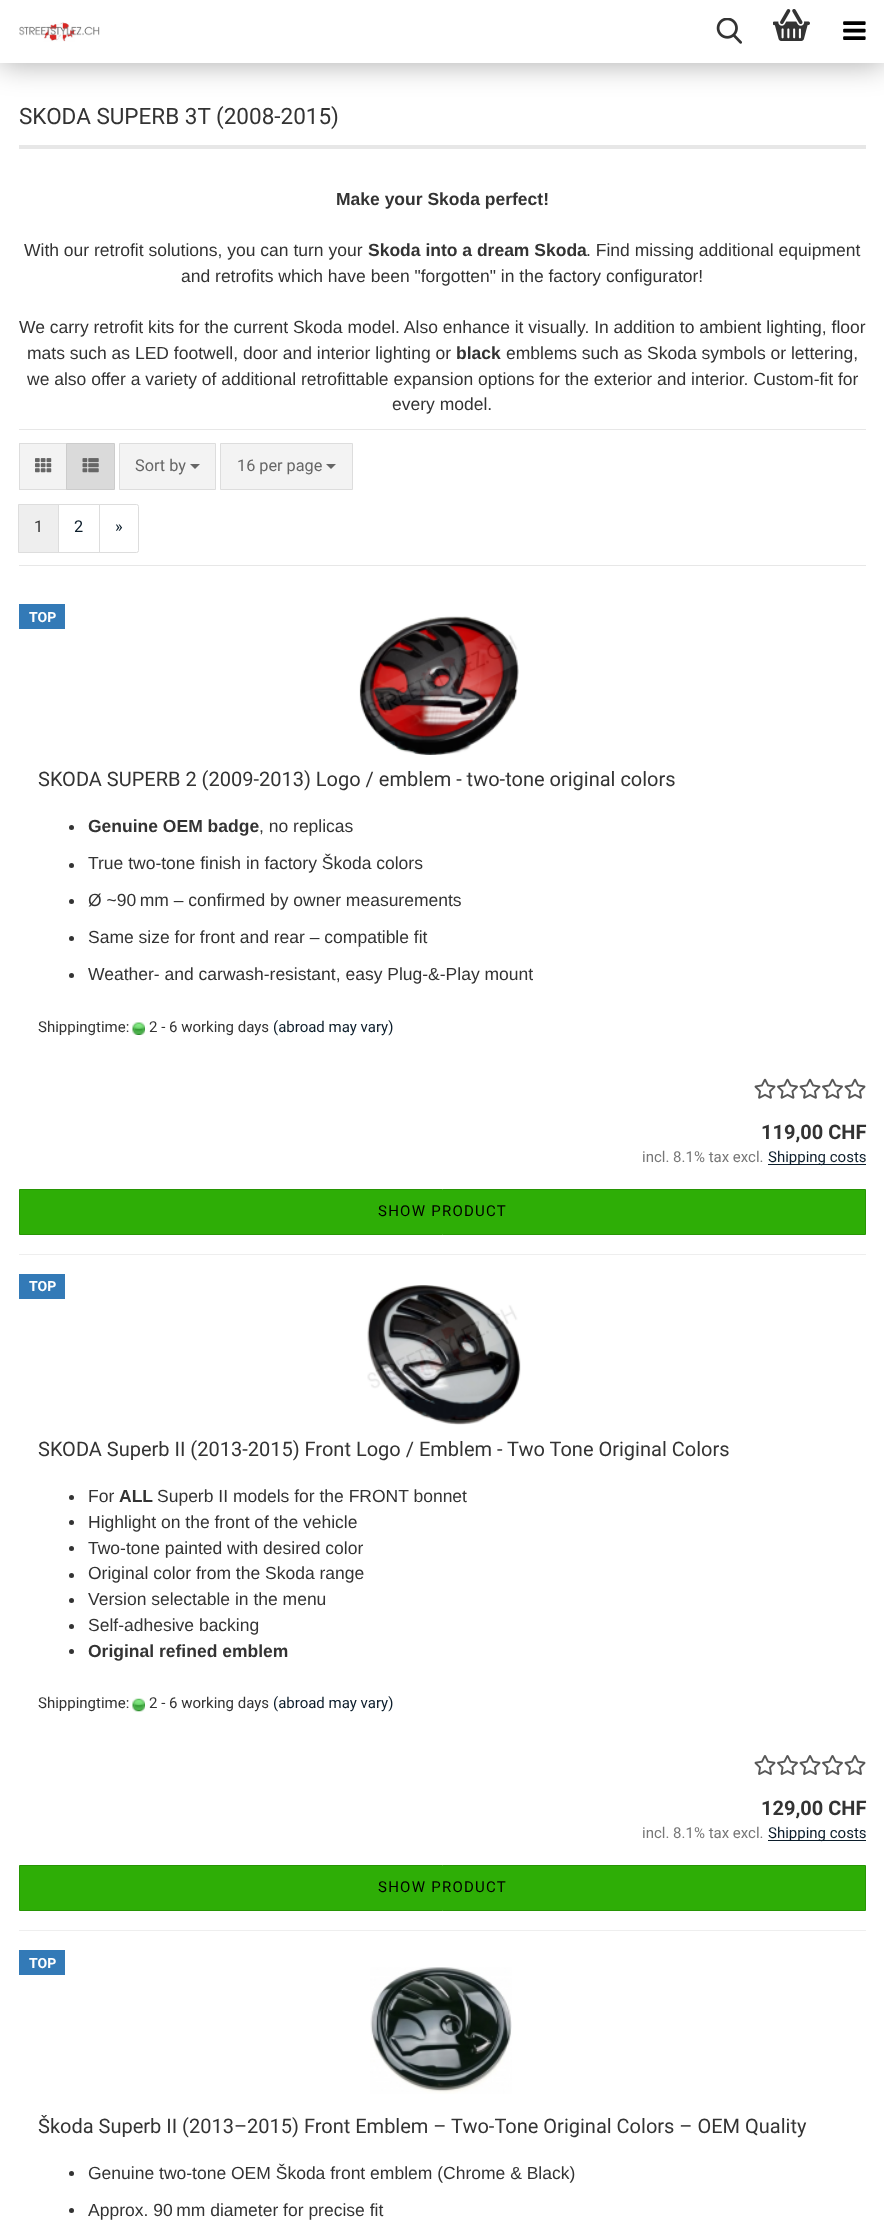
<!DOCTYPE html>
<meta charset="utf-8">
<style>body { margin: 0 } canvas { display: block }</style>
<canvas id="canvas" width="884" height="2227"></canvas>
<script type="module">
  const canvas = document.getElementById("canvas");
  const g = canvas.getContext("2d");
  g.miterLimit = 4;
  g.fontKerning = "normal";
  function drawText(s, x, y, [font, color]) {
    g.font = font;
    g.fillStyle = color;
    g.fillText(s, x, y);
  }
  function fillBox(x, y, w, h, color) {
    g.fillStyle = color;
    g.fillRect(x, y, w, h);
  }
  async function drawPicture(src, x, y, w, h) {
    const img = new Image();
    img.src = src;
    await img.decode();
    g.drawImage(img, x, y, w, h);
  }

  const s1 = ["22.5px Roboto", "#333333"];
  const s2 = ["bold 17.5px Liberation Sans", "#333333"];
  const s3 = ["17.5px Liberation Sans", "#333333"];
  const s4 = ["16.25px Roboto", "#666666"];
  const s5 = ["16.25px Roboto", "#333333"];
  const s6 = ["16.25px Roboto", "#0C1D2B"];
  const s7 = ["bold 14px Roboto", "#FFFFFF"];
  const s8 = ["20px Roboto", "#333333"];
  const s9 = ["15px Roboto", "#333333"];
  const s10 = ["15px Roboto", "#0C1D2B"];
  const s11 = ["bold 20px Roboto", "#333333"];
  const s12 = ["15px Roboto", "#777777"];
  const s13 = ["15px Roboto", "#000000"];

  fillBox(0, 0, 884, 2227, "#FFFFFF");
  g.fillStyle = "rgba(0, 0, 0, 0.35)";
  g.filter = "blur(15.5px)";
  g.beginPath();
  g.rect(0, 0, 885, 63);
  g.fill();
  g.filter = "none";
  fillBox(0, 0, 884, 63, "#FFFFFF");
  await drawPicture("pic1.png", 19, 22, 81, 20);
  await drawPicture("pic2.png", 716, 18, 26, 26);
  await drawPicture("pic3.png", 773, 9, 37, 32);
  await drawPicture("pic4.png", 843, 21, 23, 19);
  fillBox(19, 145, 847, 4, "#E7E7E7");
  drawText("SKODA SUPERB 3T (2008-2015)", 19, 124, s1);
  drawText("Make your Skoda perfect!", 336, 205, s2);
  drawText("With our retrofit solutions, you can turn your", 24, 256, s3);
  drawText("Skoda into a dream Skoda", 368, 256, s2);
  drawText(". Find missing additional equipment", 586, 256, s3);
  drawText("and retrofits which have been \"forgotten\" in the factory configurator!", 181, 282, s3);
  drawText("We carry retrofit kits for the current Skoda model. Also enhance it visually. In addition to ambient lighting, floor", 19, 333, s3);
  drawText("mats such as LED footwell, door and interior lighting or", 27, 359, s3);
  drawText("black", 456, 359, s2);
  drawText("emblems such as Skoda symbols or lettering,", 506, 359, s3);
  drawText("we also offer a variety of additional retrofittable expansion options for the exterior and interior. Custom-fit for", 27, 385, s3);
  drawText("every model.", 392, 410, s3);
  fillBox(19, 429, 847, 1, "#E7E7E7");
  fillBox(19, 565, 847, 1, "#E7E7E7");
  fillBox(20, 444, 46, 45, "#F3F3F3");
  g.strokeStyle = "#DDDDDD";
  g.strokeRect(19.5, 443.5, 48, 46);
  await drawPicture("pic5.png", 35, 458, 17, 15);
  g.fillStyle = "#DADADA";
  g.beginPath();
  g.rect(66.5, 443.5, 48, 46);
  g.fill();
  g.strokeStyle = "#CCCCCC";
  g.stroke();
  await drawPicture("pic6.png", 82, 458, 17, 15);
  g.fillStyle = "#F3F3F3";
  g.beginPath();
  g.rect(119.5, 443.5, 96, 46);
  g.fill();
  g.strokeStyle = "#DDDDDD";
  g.stroke();
  drawText("Sort by", 135, 471, s4);
  g.beginPath();
  g.moveTo(190, 464);
  g.lineTo(200, 464);
  g.lineTo(195, 469);
  g.closePath();
  g.fill();
  g.fillStyle = "#F3F3F3";
  g.beginPath();
  g.rect(220.5, 443.5, 132, 46);
  g.fill();
  g.stroke();
  drawText("16 per page", 237, 471, s4);
  g.beginPath();
  g.moveTo(326, 464);
  g.lineTo(336, 464);
  g.lineTo(331, 469);
  g.closePath();
  g.fill();
  g.fillStyle = "#EEEEEE";
  g.beginPath();
  g.rect(18.5, 504.5, 40, 48);
  g.fill();
  g.stroke();
  drawText("1", 34, 532, s5);
  g.strokeRect(58.5, 504.5, 41, 48);
  drawText("2", 74, 532, s6);
  g.fillStyle = "#FFFFFF";
  g.beginPath();
  g.roundRect(99.5, 504.5, 39, 48, [0, 2, 2, 0]);
  g.fill();
  g.stroke();
  drawText("»", 115, 532, s6);
  fillBox(19, 1254, 847, 1, "#EEEEEE");
  fillBox(19, 604, 46, 25, "#337AB7");
  drawText("TOP", 29, 622, s7);
  await drawPicture("pic7.png", 359, 616, 160, 139);
  drawText("SKODA SUPERB 2 (2009-2013) Logo / emblem - two-tone original colors", 38, 786, s8);
  g.beginPath();
  g.arc(71.5, 827.5, 2.5, 0, Math.PI * 2);
  g.fill();
  drawText("Genuine OEM badge", 88, 832, s2);
  drawText(", no replicas", 259, 832, s3);
  g.beginPath();
  g.arc(71.5, 865.5, 2.5, 0, Math.PI * 2);
  g.fill();
  drawText("True two-tone finish in factory Škoda colors", 88, 869, s3);
  g.beginPath();
  g.arc(71.5, 901.5, 2.5, 0, Math.PI * 2);
  g.fill();
  drawText("Ø ~90 mm – confirmed by owner measurements", 88, 906, s3);
  g.beginPath();
  g.arc(71.5, 938.5, 2.5, 0, Math.PI * 2);
  g.fill();
  drawText("Same size for front and rear – compatible fit", 88, 943, s3);
  g.beginPath();
  g.arc(71.5, 975.5, 2.5, 0, Math.PI * 2);
  g.fill();
  drawText("Weather- and carwash-resistant, easy Plug-&-Play mount", 88, 980, s3);
  drawText("Shippingtime:", 38, 1032, s9);
  await drawPicture("pic8.png", 132, 1022, 13, 13);
  drawText("2 - 6 working days", 149, 1032, s9);
  drawText("(abroad may vary)", 273, 1032, s10);
  await drawPicture("pic9.png", 754, 1078, 22, 21);
  await drawPicture("pic10.png", 777, 1078, 21, 21);
  await drawPicture("pic9.png", 799, 1078, 22, 21);
  await drawPicture("pic10.png", 822, 1078, 21, 21);
  await drawPicture("pic9.png", 844, 1078, 22, 21);
  drawText("119,00 CHF", 761, 1139, s11);
  drawText("incl. 8.1% tax excl.", 642, 1162, s12);
  fillBox(768, 1164, 98, 1, "#0C1D2B");
  drawText("Shipping costs", 768, 1162, s10);
  g.fillStyle = "#2EAE06";
  g.beginPath();
  g.rect(19.5, 1189.5, 846, 45);
  g.fill();
  g.strokeStyle = "#279505";
  g.stroke();
  g.letterSpacing = "1.25px";
  drawText("SHOW PRODUCT", 378, 1216, s13);
  fillBox(19, 1930, 847, 1, "#EEEEEE");
  fillBox(19, 1274, 46, 25, "#337AB7");
  g.letterSpacing = "0px";
  drawText("TOP", 29, 1291, s7);
  await drawPicture("pic11.png", 367, 1285, 154, 140);
  drawText("SKODA Superb II (2013-2015) Front Logo / Emblem - Two Tone Original Colors", 38, 1456, s8);
  g.beginPath();
  g.arc(71.5, 1497.5, 2.5, 0, Math.PI * 2);
  g.fill();
  drawText("For", 88, 1502, s3);
  drawText("ALL", 119, 1502, s2);
  drawText("Superb II models for the FRONT bonnet", 157, 1502, s3);
  g.beginPath();
  g.arc(71.5, 1522.5, 2.5, 0, Math.PI * 2);
  g.fill();
  drawText("Highlight on the front of the vehicle", 88, 1528, s3);
  g.beginPath();
  g.arc(71.5, 1548.5, 2.5, 0, Math.PI * 2);
  g.fill();
  drawText("Two-tone painted with desired color", 88, 1554, s3);
  g.beginPath();
  g.arc(71.5, 1575.5, 2.5, 0, Math.PI * 2);
  g.fill();
  drawText("Original color from the Skoda range", 88, 1579, s3);
  g.beginPath();
  g.arc(71.5, 1600.5, 2.5, 0, Math.PI * 2);
  g.fill();
  drawText("Version selectable in the menu", 88, 1605, s3);
  g.beginPath();
  g.arc(71.5, 1626.5, 2.5, 0, Math.PI * 2);
  g.fill();
  drawText("Self-adhesive backing", 88, 1631, s3);
  g.beginPath();
  g.arc(71.5, 1651.5, 2.5, 0, Math.PI * 2);
  g.fill();
  drawText("Original refined emblem", 88, 1657, s2);
  drawText("Shippingtime:", 38, 1708, s9);
  await drawPicture("pic12.png", 132, 1698, 13, 14);
  drawText("2 - 6 working days", 149, 1708, s9);
  drawText("(abroad may vary)", 273, 1708, s10);
  await drawPicture("pic13.png", 754, 1755, 22, 20);
  await drawPicture("pic14.png", 777, 1755, 21, 20);
  await drawPicture("pic13.png", 799, 1755, 22, 20);
  await drawPicture("pic14.png", 822, 1755, 21, 20);
  await drawPicture("pic13.png", 844, 1755, 22, 20);
  drawText("129,00 CHF", 761, 1815, s11);
  drawText("incl. 8.1% tax excl.", 642, 1838, s12);
  fillBox(768, 1840, 98, 1, "#0C1D2B");
  drawText("Shipping costs", 768, 1838, s10);
  g.fillStyle = "#2EAE06";
  g.beginPath();
  g.rect(19.5, 1865.5, 846, 45);
  g.fill();
  g.stroke();
  g.letterSpacing = "1.25px";
  drawText("SHOW PRODUCT", 378, 1892, s13);
  fillBox(19, 1950, 46, 25, "#337AB7");
  g.letterSpacing = "0px";
  drawText("TOP", 29, 1968, s7);
  await drawPicture("pic15.png", 370, 1967, 142, 127);
  drawText("Škoda Superb II (2013–2015) Front Emblem – Two-Tone Original Colors – OEM Quality", 38, 2133, s8);
  g.beginPath();
  g.arc(71.5, 2173.5, 2.5, 0, Math.PI * 2);
  g.fill();
  drawText("Genuine two-tone OEM Škoda front emblem (Chrome & Black)", 88, 2179, s3);
  g.beginPath();
  g.arc(71.5, 2210.5, 2.5, 0, Math.PI * 2);
  g.fill();
  drawText("Approx. 90 mm diameter for precise fit", 88, 2216, s3);
</script>
